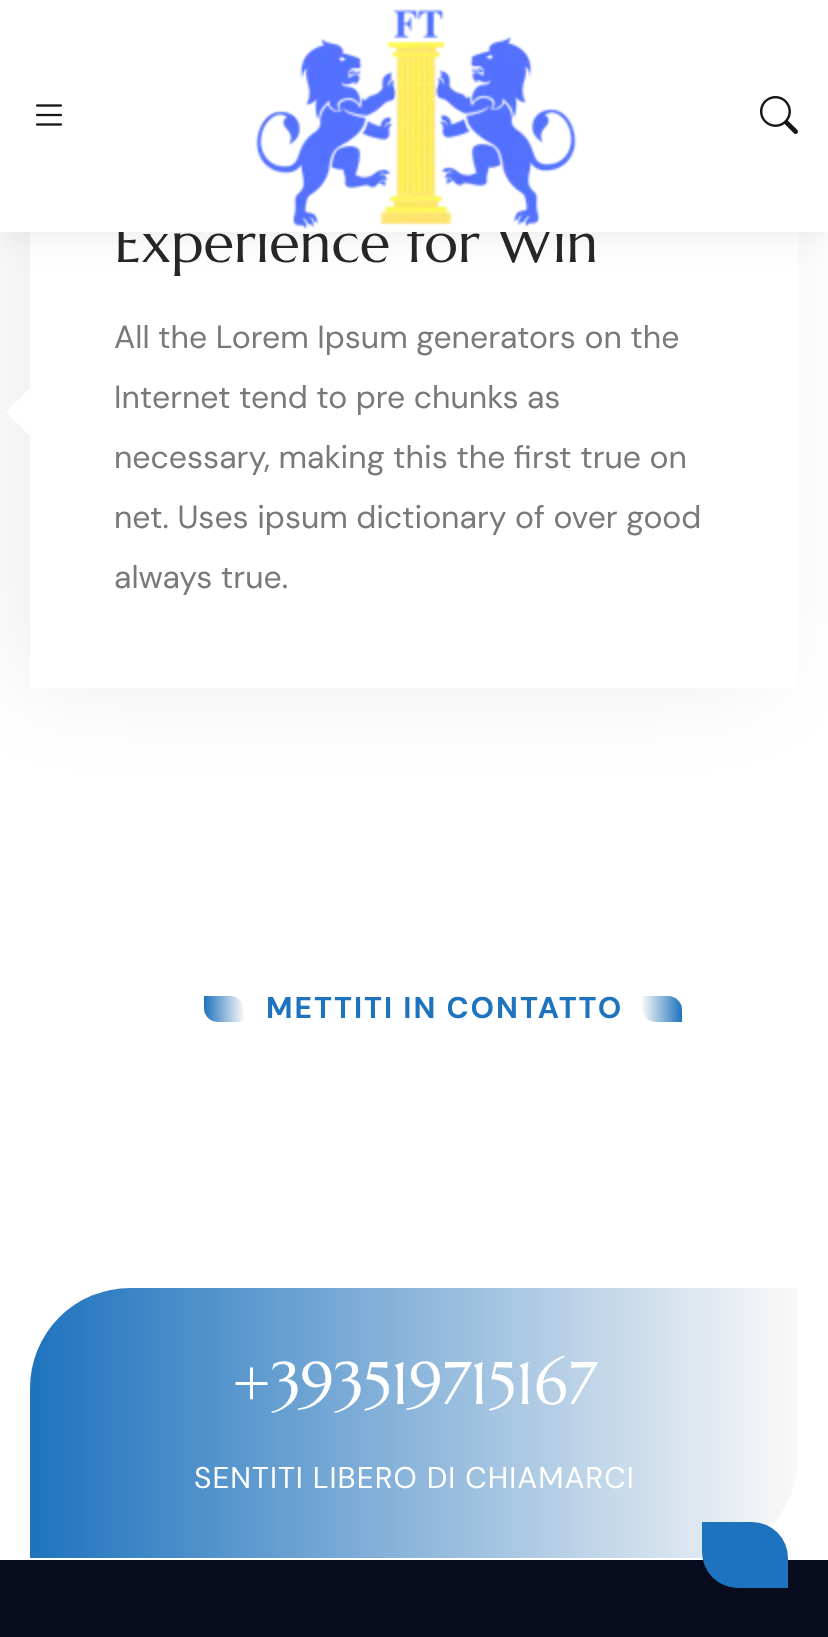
<!DOCTYPE html>
<meta charset="utf-8">
<style>body { margin: 0 } canvas { display: block }</style>
<canvas id="canvas" width="828" height="1637"></canvas>
<script type="module">
  const canvas = document.getElementById("canvas");
  const g = canvas.getContext("2d");
  g.miterLimit = 4;
  g.fontKerning = "normal";
  function drawText(s, x, y, [font, color]) {
    g.font = font;
    g.fillStyle = color;
    g.fillText(s, x, y);
  }
  function fillBox(x, y, w, h, color) {
    g.fillStyle = color;
    g.fillRect(x, y, w, h);
  }
  function fillRounded(x, y, w, h, r, color) {
    g.fillStyle = color;
    g.beginPath();
    g.roundRect(x, y, w, h, r);
    g.fill();
  }
  async function drawPicture(src, x, y, w, h) {
    const img = new Image();
    img.src = src;
    await img.decode();
    g.drawImage(img, x, y, w, h);
  }
  let gradient;

  const s1 = ["56px Marcellus", "#262626"];
  const s2 = ["32px DM Sans", "#797979"];
  const s3 = ["bold 30px DM Sans", "#1E73BE"];
  const s4 = ["60px Marcellus", "#FFFFFF"];
  const s5 = ["30px DM Sans", "#FFFFFF"];

  fillBox(0, 0, 828, 1637, "#FFFFFF");
  g.fillStyle = "rgba(0, 0, 0, 0.09)";
  g.filter = "blur(55px)";
  g.beginPath();
  g.rect(24, 150, 736, 522);
  g.fill();
  g.filter = "none";
  fillRounded(30, 134, 768, 554, 4, "#FFFFFF");
  g.fillStyle = "rgba(0, 0, 0, 0.1)";
  g.filter = "blur(20px)";
  g.beginPath();
  g.rect(2, 2, 824, 228);
  g.fill();
  g.filter = "none";
  drawText("Experience for Win", 114, 262, s1);
  fillBox(0, 0, 828, 232, "#FFFFFF");
  await drawPicture("pic1.png", 36, 104, 26, 22);
  await drawPicture("pic2.png", 255, 9, 322, 221);
  await drawPicture("pic3.png", 760, 96, 38, 38);
  g.beginPath();
  g.moveTo(34, 384);
  g.lineTo(34, 440);
  g.lineTo(6, 412);
  g.closePath();
  g.fill();
  drawText("All the Lorem Ipsum generators on the", 114, 348, s2);
  drawText("Internet tend to pre chunks as", 114, 408, s2);
  drawText("necessary, making this the first true on", 114, 468, s2);
  drawText("net. Uses ipsum dictionary of over good", 114, 528, s2);
  drawText("always true.", 114, 588, s2);
  gradient = g.createLinearGradient(204, 1008, 244, 1008);
  gradient.addColorStop(0, "#1E73BE");
  gradient.addColorStop(1, "#FBF9F7");
  g.fillStyle = gradient;
  g.beginPath();
  g.roundRect(204, 996, 40, 26, [0, 14, 0, 14]);
  g.fill();
  g.letterSpacing = "2px";
  drawText("METTITI IN CONTATTO", 266, 1018, s3);
  gradient = g.createLinearGradient(682, 1008, 642, 1008);
  gradient.addColorStop(0, "#1E73BE");
  gradient.addColorStop(1, "#FBF9F7");
  g.fillStyle = gradient;
  g.beginPath();
  g.roundRect(642, 996, 40, 26, [0, 14, 0, 14]);
  g.fill();
  gradient = g.createLinearGradient(30, 1423, 798, 1423);
  gradient.addColorStop(0, "#1E73BE");
  gradient.addColorStop(1, "#FBF9F8");
  g.fillStyle = gradient;
  g.beginPath();
  g.roundRect(30, 1288, 768, 270, [100, 0, 100, 0]);
  g.fill();
  g.letterSpacing = "0px";
  drawText("+393519715167", 232, 1404, s4);
  g.letterSpacing = "1px";
  drawText("SENTITI LIBERO DI CHIAMARCI", 194, 1488, s5);
  fillBox(0, 1560, 828, 77, "#090B1E");
  g.fillStyle = "#1E73BE";
  g.beginPath();
  g.roundRect(702, 1522, 86, 66, [0, 36, 0, 36]);
  g.fill();
</script>
